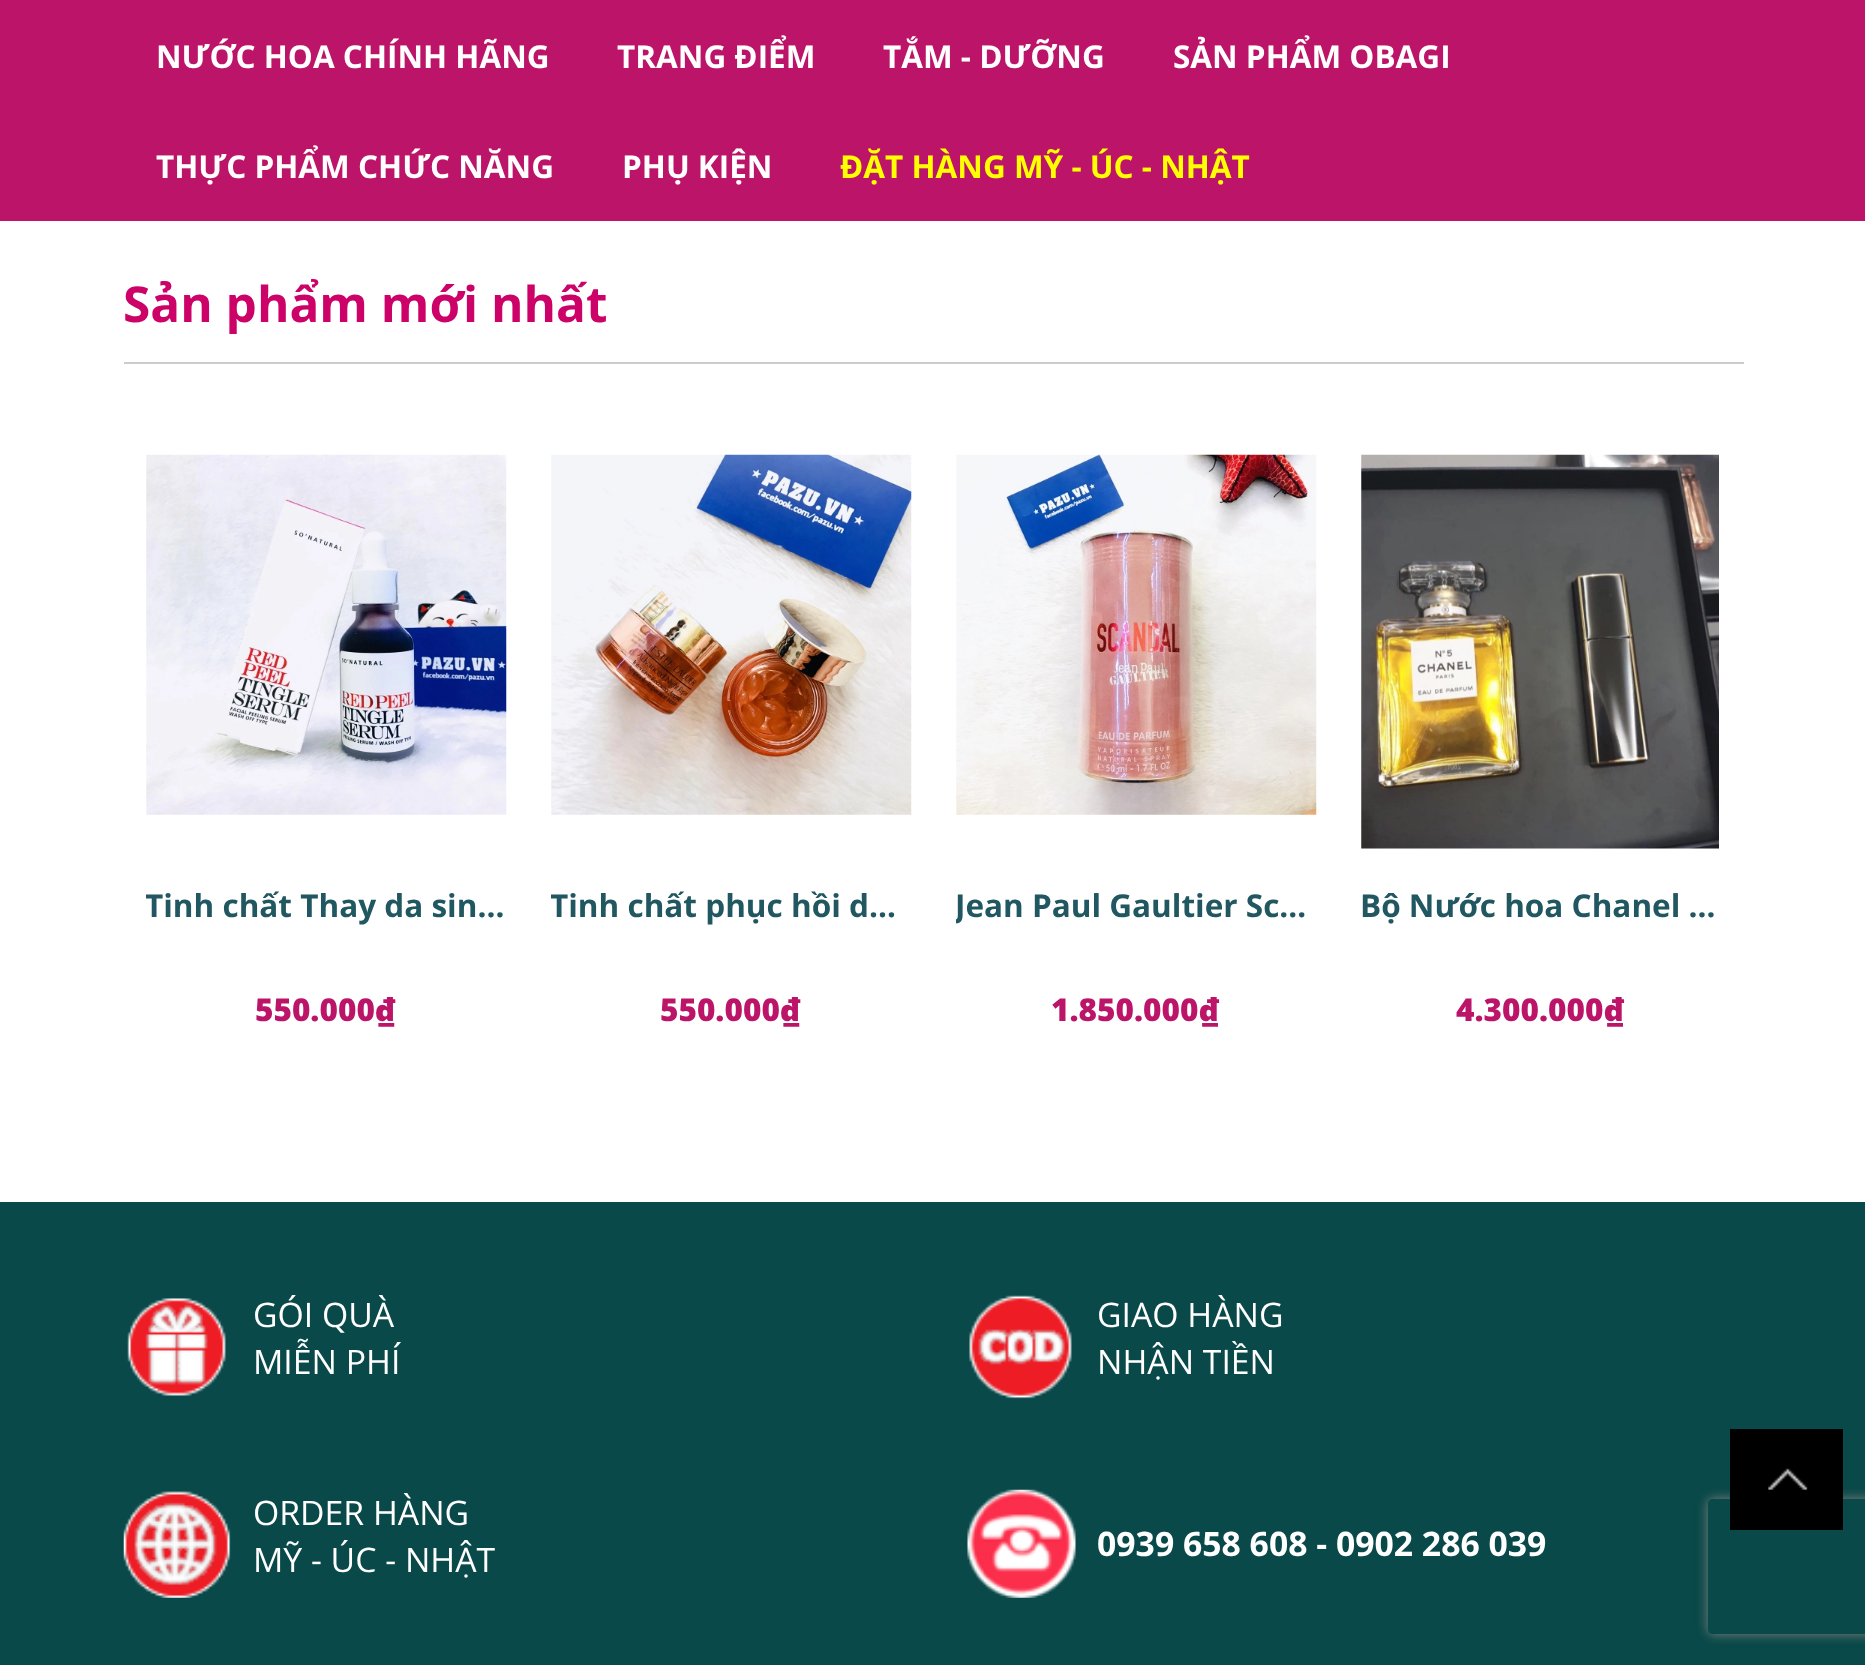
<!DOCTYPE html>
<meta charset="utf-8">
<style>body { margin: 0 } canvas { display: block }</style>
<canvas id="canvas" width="1865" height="1665"></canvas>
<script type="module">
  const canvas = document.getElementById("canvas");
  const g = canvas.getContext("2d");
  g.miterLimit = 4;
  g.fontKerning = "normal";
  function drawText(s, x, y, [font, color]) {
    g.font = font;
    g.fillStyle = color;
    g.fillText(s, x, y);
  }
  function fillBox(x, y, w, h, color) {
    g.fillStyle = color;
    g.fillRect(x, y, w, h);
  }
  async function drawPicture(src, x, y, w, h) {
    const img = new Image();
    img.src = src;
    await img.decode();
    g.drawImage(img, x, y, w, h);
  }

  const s1 = ["bold 31.5px Open Sans", "#FFFFFF"];
  const s2 = ["bold 31.5px Open Sans", "#FFFF00"];
  const s3 = ["bold 49.5px Open Sans", "#CC0268"];
  const s4 = ["bold 31.5px Open Sans", "#205761"];
  const s5 = ["800 31.5px Open Sans", "#BB1468"];
  const s6 = ["33.75px Open Sans", "#FFFFFF"];
  const s7 = ["bold 33.75px Open Sans", "#FFFFFF"];

  fillBox(0, 0, 1865, 1665, "#FFFFFF");
  fillBox(0, 0, 1865, 221, "#BB1468");
  drawText("NƯỚC HOA CHÍNH HÃNG", 156, 68, s1);
  drawText("TRANG ĐIỂM", 617, 68, s1);
  drawText("TẮM - DƯỠNG", 883, 68, s1);
  drawText("SẢN PHẨM OBAGI", 1173, 68, s1);
  drawText("THỰC PHẨM CHỨC NĂNG", 156, 178, s1);
  drawText("PHỤ KIỆN", 622, 178, s1);
  drawText("ĐẶT HÀNG MỸ - ÚC - NHẬT", 840, 178, s2);
  fillBox(124, 362, 1620, 2, "#CCCCCC");
  drawText("Sản phẩm mới nhất", 123, 322, s3);
  await drawPicture("pic1.png", 146, 454, 361, 361);
  g.save();
  g.beginPath();
  g.rect(146, 848, 360, 126);
  g.clip();
  drawText("Tinh chất Thay da sin…", 145, 917, s4);
  g.restore();
  drawText("550.000₫", 255, 1021, s5);
  await drawPicture("pic2.png", 551, 454, 361, 361);
  g.save();
  g.beginPath();
  g.rect(551, 848, 360, 126);
  g.clip();
  drawText("Tinh chất phục hồi d…", 550, 917, s4);
  g.restore();
  drawText("550.000₫", 660, 1021, s5);
  await drawPicture("pic3.png", 956, 454, 361, 361);
  g.save();
  g.beginPath();
  g.rect(956, 848, 360, 126);
  g.clip();
  drawText("Jean Paul Gaultier Sc…", 955, 917, s4);
  g.restore();
  drawText("1.850.000₫", 1051, 1021, s5);
  await drawPicture("pic4.png", 1361, 454, 358, 395);
  drawText("Bộ Nước hoa Chanel …", 1360, 917, s4);
  drawText("4.300.000₫", 1456, 1021, s5);
  fillBox(0, 1202, 1865, 463, "#0A4949");
  await drawPicture("pic5.png", 127, 1298, 99, 98);
  drawText("GÓI QUÀ", 253, 1327, s6);
  drawText("MIỄN PHÍ", 253, 1374, s6);
  await drawPicture("pic6.png", 969, 1295, 103, 104);
  drawText("GIAO HÀNG", 1097, 1327, s6);
  drawText("NHẬN TIỀN", 1097, 1374, s6);
  await drawPicture("pic7.png", 123, 1491, 108, 107);
  drawText("ORDER HÀNG", 253, 1525, s6);
  drawText("MỸ - ÚC - NHẬT", 253, 1572, s6);
  await drawPicture("pic8.png", 967, 1489, 109, 109);
  drawText("0939 658 608 - 0902 286 039", 1097, 1556, s7);
  g.save();
  g.beginPath();
  g.moveTo(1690, 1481);
  g.lineTo(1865, 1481);
  g.lineTo(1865, 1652);
  g.lineTo(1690, 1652);
  g.closePath();
  g.moveTo(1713, 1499);
  g.lineTo(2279, 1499);
  g.bezierCurveTo(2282, 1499, 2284, 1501, 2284, 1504);
  g.lineTo(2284, 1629);
  g.bezierCurveTo(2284, 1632, 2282, 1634, 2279, 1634);
  g.lineTo(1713, 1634);
  g.bezierCurveTo(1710, 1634, 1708, 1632, 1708, 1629);
  g.lineTo(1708, 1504);
  g.bezierCurveTo(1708, 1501, 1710, 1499, 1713, 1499);
  g.closePath();
  g.clip("evenodd");
  g.fillStyle = "#808080";
  g.filter = "blur(5.5px)";
  g.beginPath();
  g.roundRect(1708, 1499, 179, 135, 5);
  g.fill();
  g.filter = "none";
  g.restore();
  fillBox(1730, 1429, 113, 101, "#000000");
  await drawPicture("pic9.png", 1768, 1468, 40, 22);
</script>
